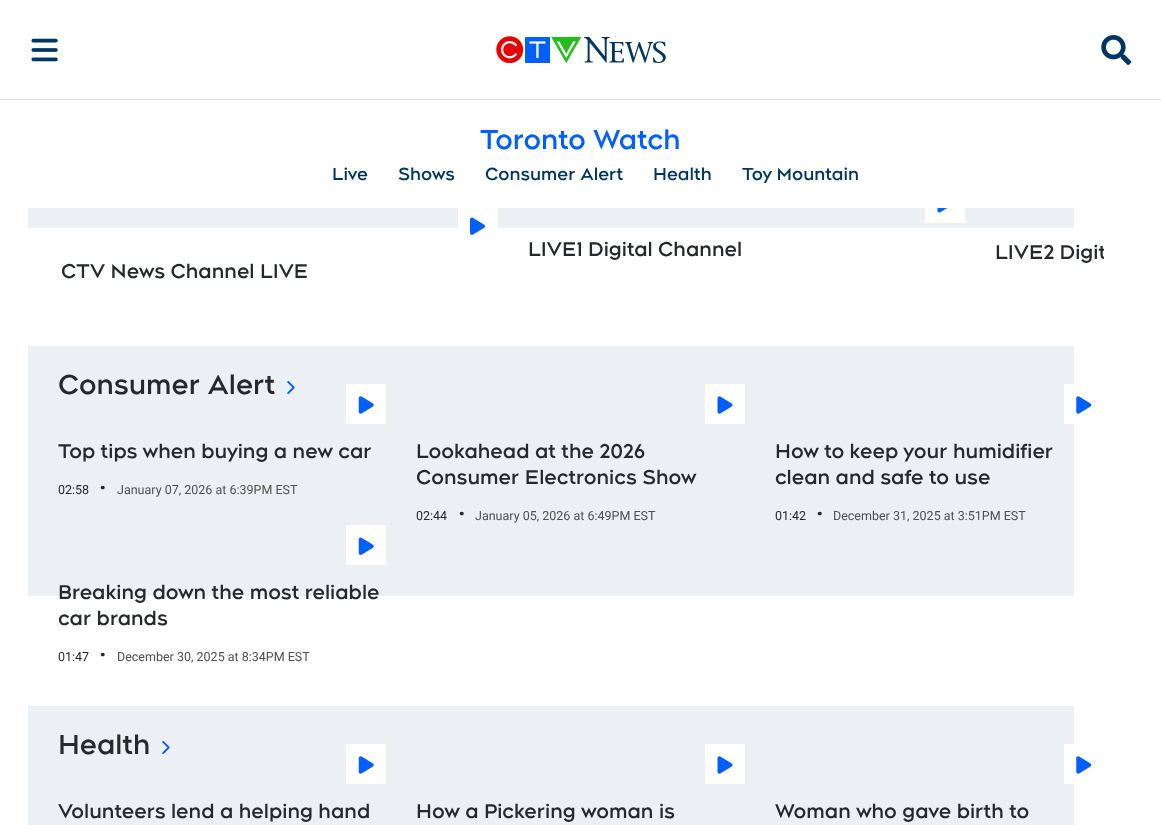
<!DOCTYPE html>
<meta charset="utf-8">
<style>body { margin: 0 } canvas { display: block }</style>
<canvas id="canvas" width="1161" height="825"></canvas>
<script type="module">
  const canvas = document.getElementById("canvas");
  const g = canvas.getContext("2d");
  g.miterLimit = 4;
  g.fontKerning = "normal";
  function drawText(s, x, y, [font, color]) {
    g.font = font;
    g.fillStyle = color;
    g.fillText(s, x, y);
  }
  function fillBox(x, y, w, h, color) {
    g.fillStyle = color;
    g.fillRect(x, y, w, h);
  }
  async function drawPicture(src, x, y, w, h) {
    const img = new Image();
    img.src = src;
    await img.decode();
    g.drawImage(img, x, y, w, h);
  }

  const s1 = ["bold 27.5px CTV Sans", "#005FFF"];
  const s2 = ["bold 17.5px CTV Sans", "#003662"];
  const s3 = ["bold 20px CTV Sans", "#26292B"];
  const s4 = ["bold 27.5px CTV Sans", "#26292B"];
  const s5 = ["12.5px Roboto", "#26292B"];
  const s6 = ["bold 25px Roboto", "#26292B"];
  const s7 = ["12.5px Roboto", "#4F4F4F"];

  fillBox(0, 0, 1161, 825, "#FFFFFF");
  fillBox(0, 99, 1161, 1, "#DDDDDD");
  await drawPicture("pic1.png", 31, 38, 27, 24);
  await drawPicture("pic2.png", 496, 36, 170, 27);
  await drawPicture("pic3.png", 1101, 35, 31, 30);
  drawText("Toronto Watch", 480, 149, s1);
  drawText("Live", 332, 180, s2);
  drawText("Shows", 398, 180, s2);
  drawText("Consumer Alert", 485, 180, s2);
  drawText("Health", 653, 180, s2);
  drawText("Toy Mountain", 742, 180, s2);
  fillBox(28, 208, 1046, 20, "#ECEFF3");
  fillBox(925, 208, 40, 15, "#FFFFFF");
  await drawPicture("pic4.png", 937, 208, 10, 5);
  drawText("LIVE1 Digital Channel", 528, 256, s3);
  g.save();
  g.beginPath();
  g.rect(995, 241, 109, 25);
  g.clip();
  drawText("LIVE2 Digit", 995, 259, s3);
  g.restore();
  fillBox(458, 208, 40, 20, "#FFFFFF");
  await drawPicture("pic5.png", 470, 217, 15, 18);
  drawText("CTV News Channel LIVE", 61, 278, s3);
  fillBox(28, 346, 1046, 250, "#ECEFF3");
  drawText("Consumer Alert", 58, 394, s4);
  await drawPicture("pic6.png", 287, 381, 8, 13);
  fillBox(346, 384, 40, 40, "#FFFFFF");
  await drawPicture("pic7.png", 358, 396, 16, 18);
  drawText("Top tips when buying a new car", 58, 458, s3);
  drawText("02:58", 58, 494, s5);
  drawText("·", 99, 496, s6);
  drawText("January 07, 2026 at 6:39PM EST", 117, 494, s7);
  fillBox(705, 384, 40, 40, "#FFFFFF");
  await drawPicture("pic8.png", 717, 396, 16, 18);
  drawText("Lookahead at the 2026", 416, 458, s3);
  drawText("Consumer Electronics Show", 416, 484, s3);
  drawText("02:44", 416, 520, s5);
  drawText("·", 458, 522, s6);
  drawText("January 05, 2026 at 6:49PM EST", 475, 520, s7);
  fillBox(1064, 384, 10, 40, "#FFFFFF");
  await drawPicture("pic9.png", 1076, 396, 16, 18);
  drawText("How to keep your humidifier", 775, 458, s3);
  drawText("clean and safe to use", 775, 484, s3);
  drawText("01:42", 775, 520, s5);
  drawText("·", 816, 522, s6);
  drawText("December 31, 2025 at 3:51PM EST", 833, 520, s7);
  fillBox(346, 525, 40, 40, "#FFFFFF");
  await drawPicture("pic10.png", 358, 537, 16, 18);
  drawText("Breaking down the most reliable", 58, 599, s3);
  drawText("car brands", 58, 625, s3);
  drawText("01:47", 58, 661, s5);
  drawText("·", 99, 663, s6);
  drawText("December 30, 2025 at 8:34PM EST", 117, 661, s7);
  fillBox(28, 706, 1046, 119, "#ECEFF3");
  drawText("Health", 58, 754, s4);
  await drawPicture("pic6.png", 162, 741, 8, 13);
  fillBox(346, 744, 40, 40, "#FFFFFF");
  await drawPicture("pic7.png", 358, 756, 16, 18);
  drawText("Volunteers lend a helping hand", 58, 818, s3);
  fillBox(705, 744, 40, 40, "#FFFFFF");
  await drawPicture("pic8.png", 717, 756, 16, 18);
  drawText("How a Pickering woman is", 416, 818, s3);
  fillBox(1064, 744, 10, 40, "#FFFFFF");
  await drawPicture("pic9.png", 1076, 756, 16, 18);
  drawText("Woman who gave birth to", 775, 818, s3);
</script>
